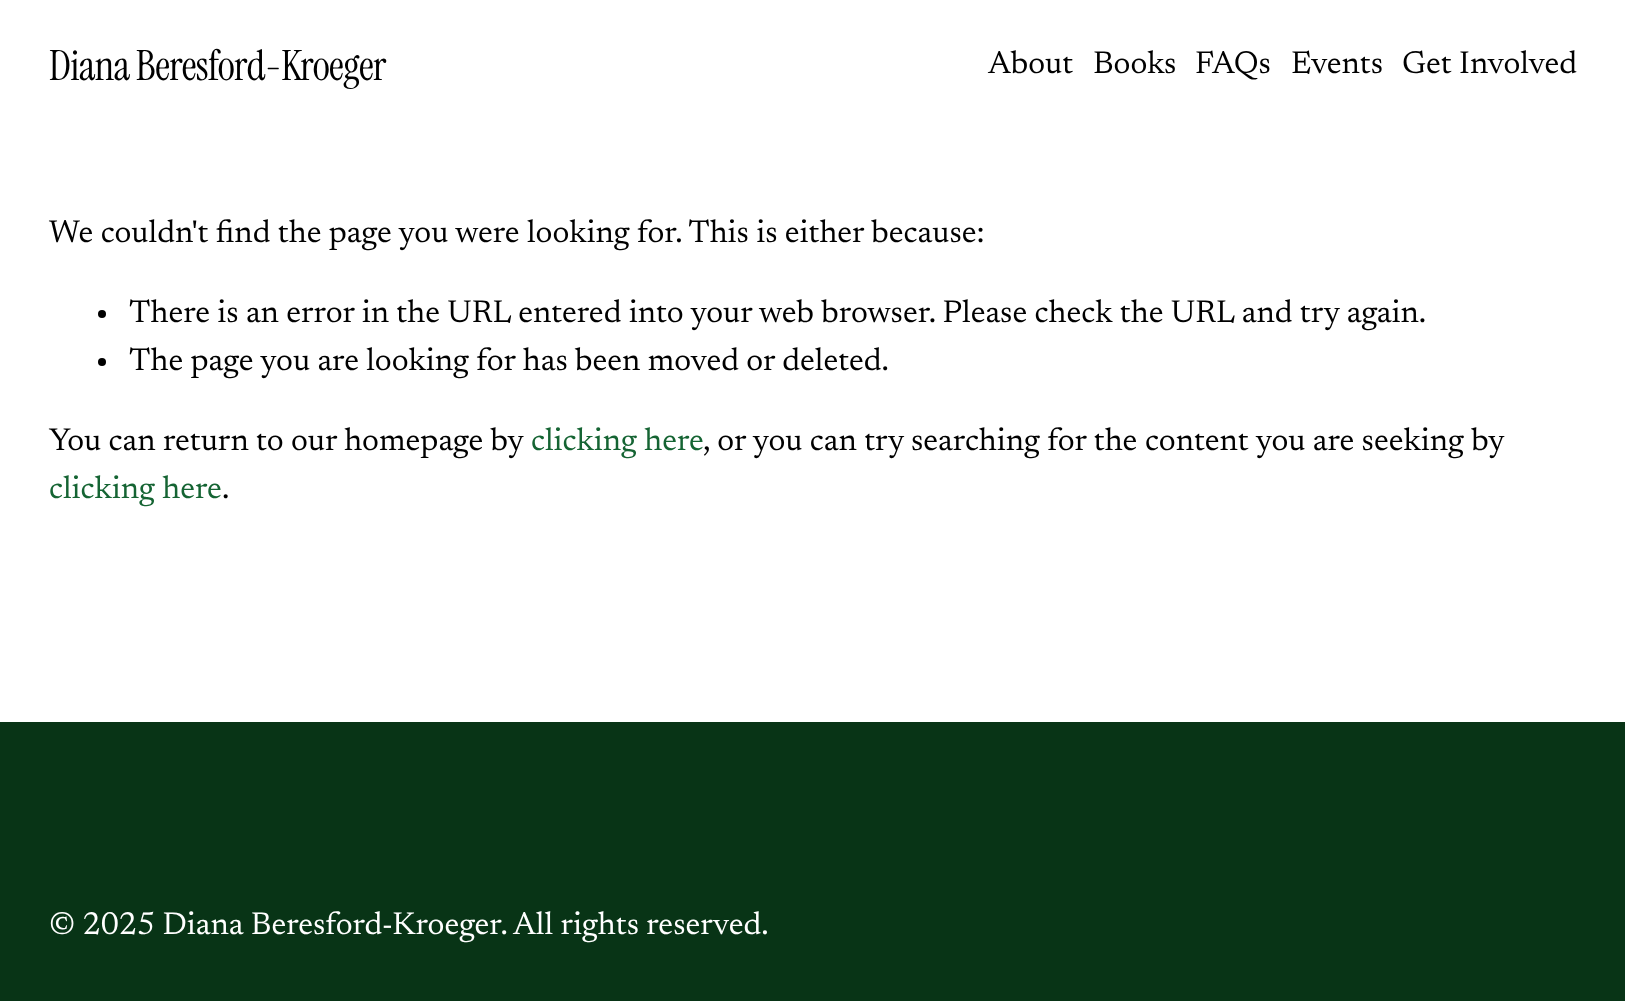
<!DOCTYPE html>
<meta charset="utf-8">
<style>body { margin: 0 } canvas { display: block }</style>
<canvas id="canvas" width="1625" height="1001"></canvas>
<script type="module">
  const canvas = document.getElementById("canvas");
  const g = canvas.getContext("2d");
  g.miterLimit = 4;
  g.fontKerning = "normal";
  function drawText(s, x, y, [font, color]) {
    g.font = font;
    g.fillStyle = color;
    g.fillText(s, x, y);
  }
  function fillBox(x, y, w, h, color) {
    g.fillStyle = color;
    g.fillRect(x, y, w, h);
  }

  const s1 = ["41.75px Instrument Serif", "#000000"];
  const s2 = ["32px Newsreader", "#000000"];
  const s3 = ["32px Newsreader", "#156433"];
  const s4 = ["32px Newsreader", "#FFFFFF"];

  fillBox(0, 0, 1625, 1001, "#FFFFFF");
  g.letterSpacing = "-0.8px";
  drawText("Diana Beresford-Kroeger", 49, 80, s1);
  g.letterSpacing = "0px";
  drawText("About", 988, 73, s2);
  drawText("Books", 1093, 73, s2);
  drawText("FAQs", 1195, 73, s2);
  drawText("Events", 1291, 73, s2);
  drawText("Get Involved", 1402, 73, s2);
  drawText("We couldn't find the page you were looking for. This is either because:", 49, 242, s2);
  g.beginPath();
  g.arc(102, 314, 4, 0, Math.PI * 2);
  g.fill();
  drawText("There is an error in the URL entered into your web browser. Please check the URL and try again.", 129, 322, s2);
  g.beginPath();
  g.arc(102, 362, 4, 0, Math.PI * 2);
  g.fill();
  drawText("The page you are looking for has been moved or deleted.", 129, 370, s2);
  drawText("You can return to our homepage by", 49, 450, s2);
  drawText("clicking here", 531, 450, s3);
  drawText(", or you can try searching for the", 703, 450, s2);
  drawText("content you are seeking by", 1145, 450, s2);
  drawText("clicking here", 49, 498, s3);
  drawText(".", 222, 498, s2);
  fillBox(0, 722, 1625, 279, "#083416");
  drawText("© 2025 Diana Beresford-Kroeger. All rights reserved.", 49, 934, s4);
</script>
